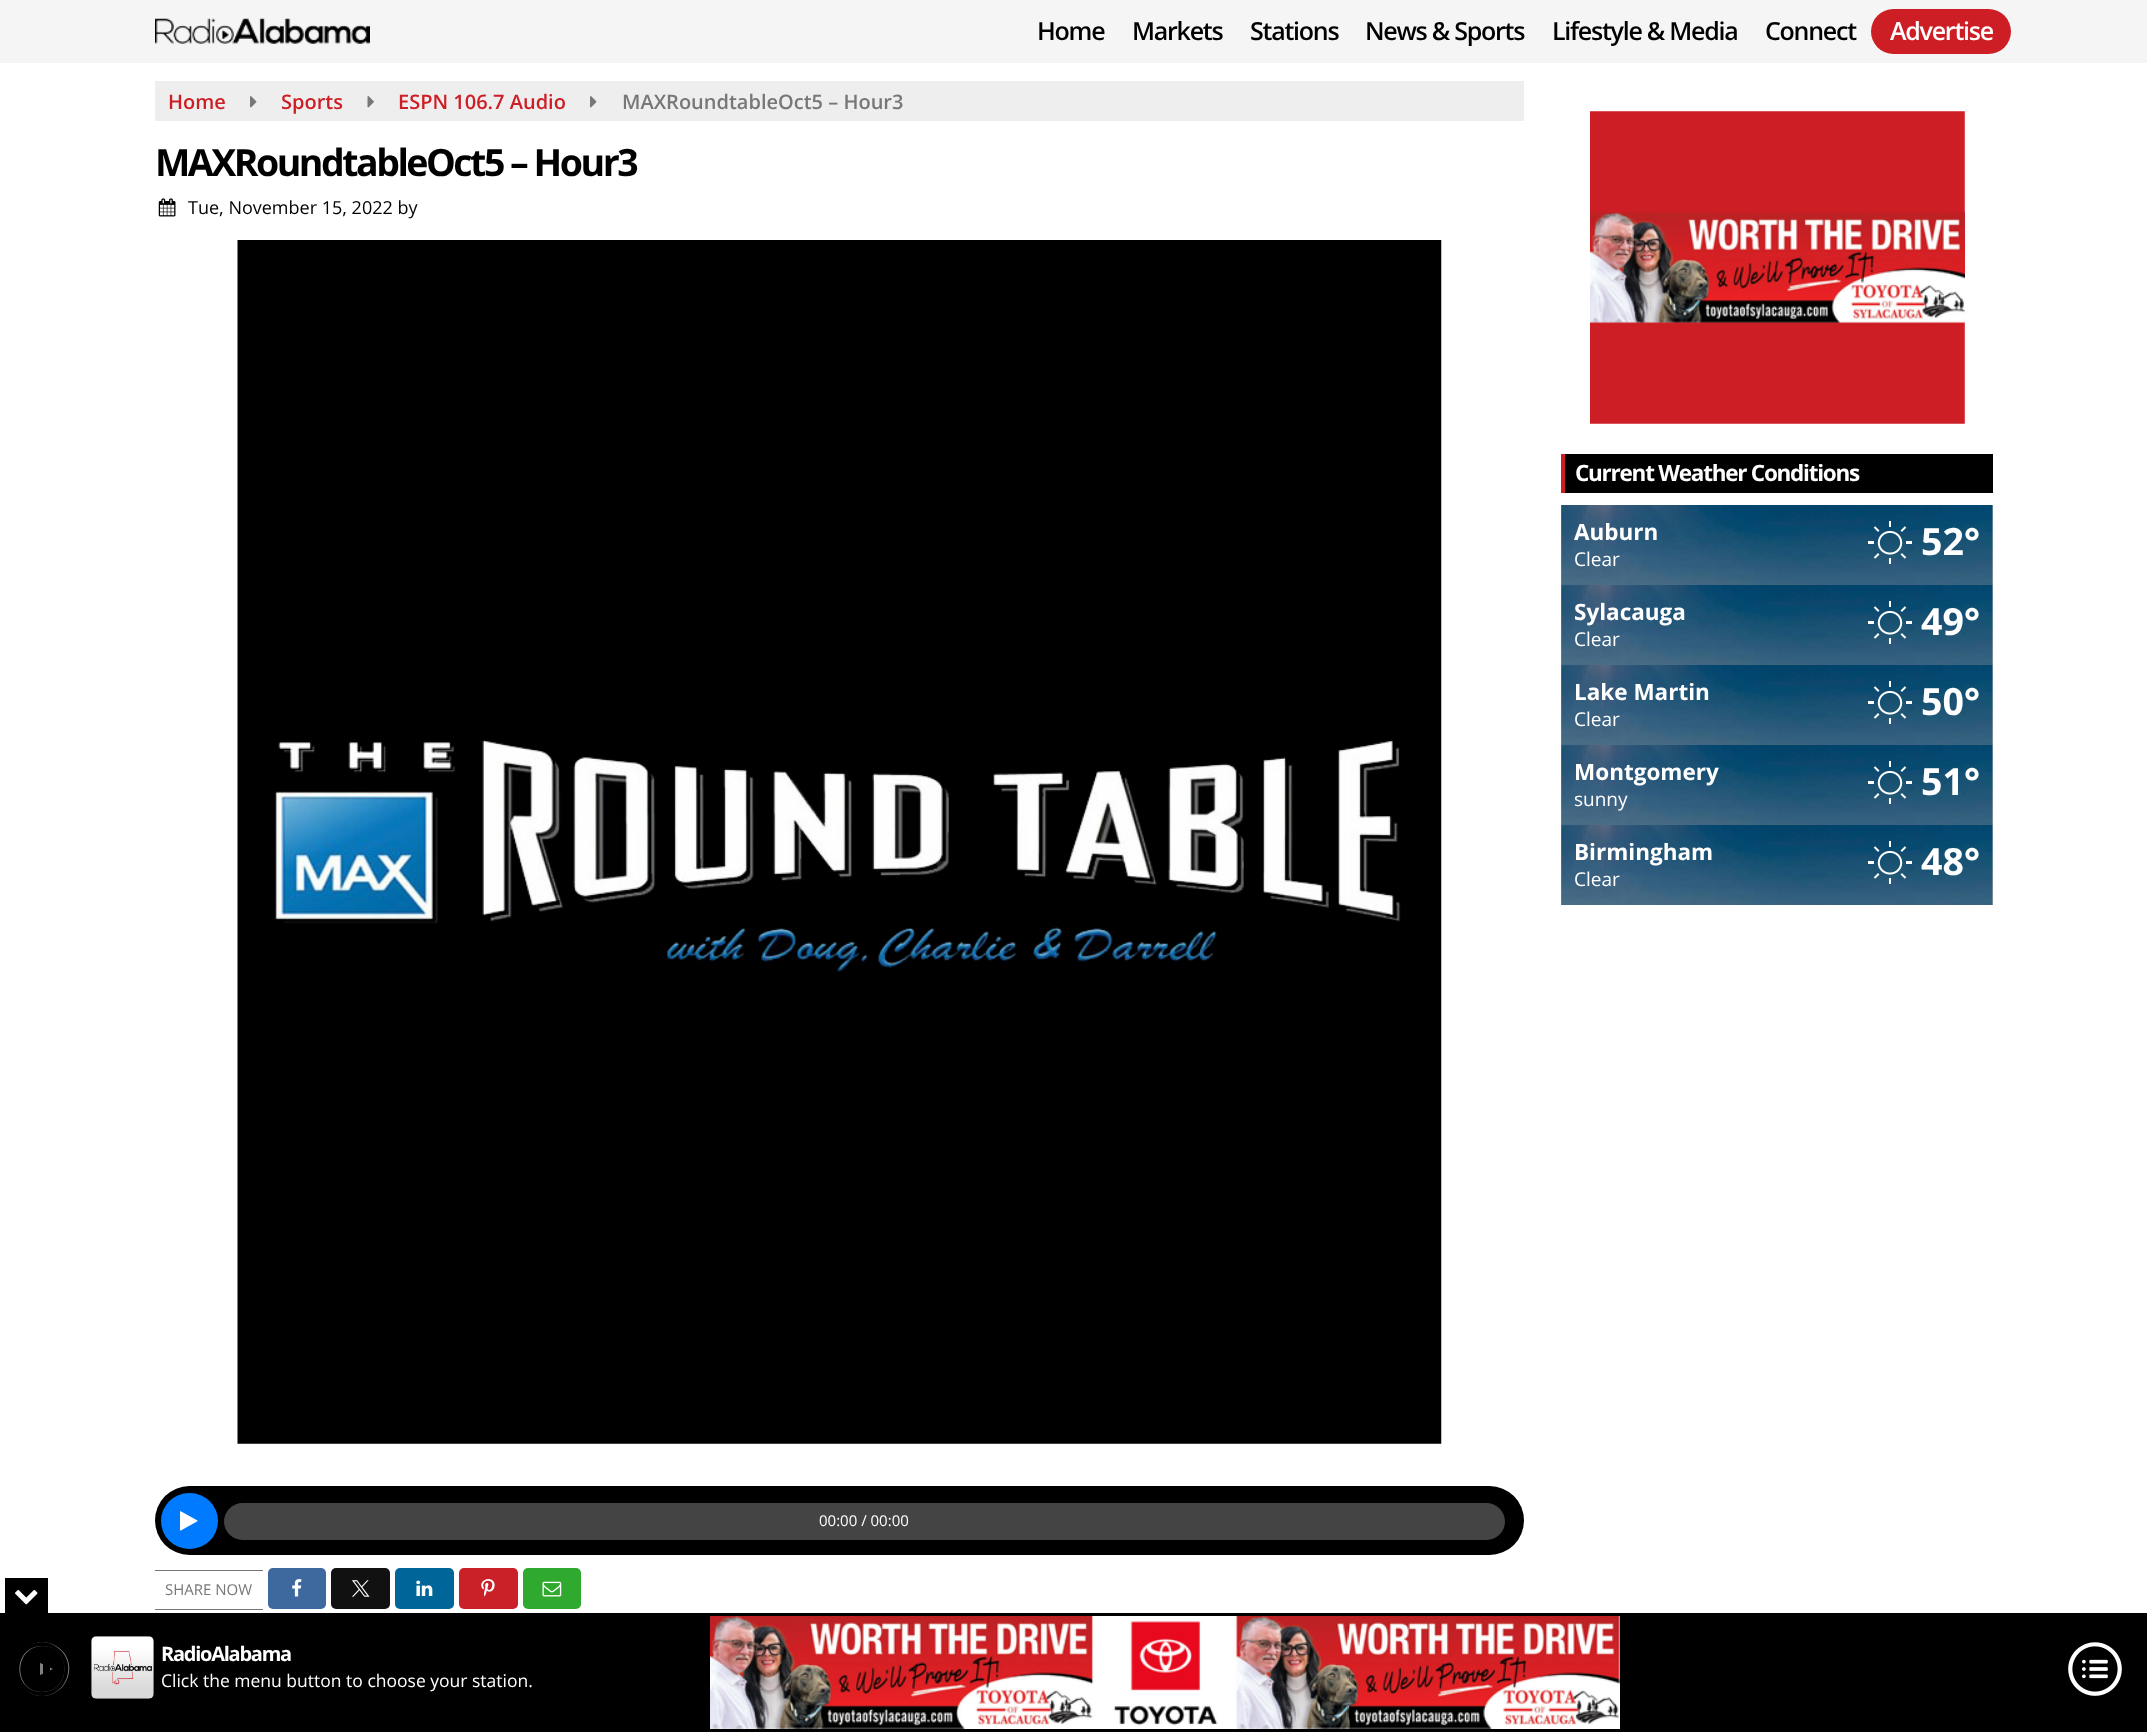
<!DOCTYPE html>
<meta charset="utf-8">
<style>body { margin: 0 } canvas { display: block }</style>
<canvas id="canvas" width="2147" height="1732"></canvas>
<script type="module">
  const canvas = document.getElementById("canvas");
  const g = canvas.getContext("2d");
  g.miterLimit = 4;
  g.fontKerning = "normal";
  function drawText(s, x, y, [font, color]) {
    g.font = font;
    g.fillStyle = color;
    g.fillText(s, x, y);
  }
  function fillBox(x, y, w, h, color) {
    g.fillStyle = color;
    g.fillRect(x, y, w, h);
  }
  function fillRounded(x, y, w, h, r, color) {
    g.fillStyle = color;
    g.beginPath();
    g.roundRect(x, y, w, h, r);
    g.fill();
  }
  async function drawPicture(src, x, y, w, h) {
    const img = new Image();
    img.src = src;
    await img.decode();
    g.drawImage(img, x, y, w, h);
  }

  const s1 = ["600 25px Open Sans", "#000000"];
  const s2 = ["600 25px Open Sans", "#FFFFFF"];
  const s3 = ["600 20px Open Sans", "#CE1E25"];
  const s4 = ["600 20px Open Sans", "#777777"];
  const s5 = ["bold 37.5px Open Sans", "#000000"];
  const s6 = ["18px Open Sans", "#000000"];
  const s7 = ["15px Open Sans", "#FFFFFF"];
  const s8 = ["15px Open Sans", "#777777"];
  const s9 = ["bold 22.5px Open Sans", "#FFFFFF"];
  const s10 = ["19px Open Sans", "#FFFFFF"];
  const s11 = ["bold 37.5px Open Sans", "#FFFFFF"];
  const s12 = ["bold 20px Open Sans", "#FFFFFF"];
  const s13 = ["17.5px Open Sans", "#FFFFFF"];

  fillBox(0, 0, 2147, 1732, "#FFFFFF");
  fillBox(1561, 505, 432, 400, "#B3B3B3");
  fillBox(0, 0, 2147, 63, "#F5F5F5");
  await drawPicture("pic1.png", 155, 18, 215, 26);
  g.letterSpacing = "-1.25px";
  drawText("Home", 1037, 40, s1);
  drawText("Markets", 1132, 40, s1);
  drawText("Stations", 1250, 40, s1);
  drawText("News & Sports", 1365, 40, s1);
  drawText("Lifestyle & Media", 1552, 40, s1);
  drawText("Connect", 1765, 40, s1);
  fillRounded(1871, 9, 140, 45, 22.5, "#CE1E25");
  drawText("Advertise", 1890, 40, s2);
  fillBox(155, 81, 1369, 40, "#EEEEEE");
  g.letterSpacing = "0px";
  drawText("Home", 168, 109, s3);
  await drawPicture("pic2.png", 250, 96, 7, 12);
  drawText("Sports", 281, 109, s3);
  await drawPicture("pic3.png", 367, 96, 7, 12);
  drawText("ESPN 106.7 Audio", 398, 109, s3);
  await drawPicture("pic2.png", 590, 96, 7, 12);
  drawText("MAXRoundtableOct5 – Hour3", 622, 109, s4);
  g.letterSpacing = "-2.5px";
  drawText("MAXRoundtableOct5 – Hour3", 155, 176, s5);
  await drawPicture("pic4.png", 158, 198, 18, 19);
  g.letterSpacing = "0px";
  drawText("Tue, November 15, 2022 by", 188, 214, s6);
  await drawPicture("pic5.png", 237, 240, 1205, 1204);
  fillRounded(155, 1486, 1369, 69, 34.5, "#000000");
  fillRounded(161, 1493, 57, 56, 28, "#007BFF");
  await drawPicture("pic6.png", 180, 1511, 18, 20);
  fillRounded(224, 1503, 1281, 37, 18.5, "#444444");
  drawText("00:00 / 00:00", 819, 1526, s7);
  fillBox(155, 1570, 108, 1, "#777777");
  fillBox(155, 1609, 108, 1, "#777777");
  drawText("SHARE NOW", 165, 1595, s8);
  fillRounded(268, 1568, 58, 41, 5, "#3D699E");
  await drawPicture("pic7.png", 292, 1579, 10, 18);
  fillRounded(331, 1568, 59, 41, 5, "#111111");
  await drawPicture("pic8.png", 352, 1580, 18, 17);
  fillRounded(395, 1568, 59, 41, 5, "#006699");
  await drawPicture("pic9.png", 416, 1580, 17, 16);
  fillRounded(459, 1568, 59, 41, 5, "#CA2027");
  await drawPicture("pic10.png", 481, 1579, 14, 18);
  fillRounded(523, 1568, 58, 41, 5, "#2FA92E");
  await drawPicture("pic11.png", 542, 1581, 20, 16);
  await drawPicture("pic12.png", 1590, 111, 375, 313);
  fillBox(1565, 454, 428, 39, "#000000");
  fillBox(1561, 454, 4, 39, "#CE1E25");
  g.letterSpacing = "-1.25px";
  drawText("Current Weather Conditions", 1575, 481, s9);
  await drawPicture("pic13.png", 1561, 505, 432, 80);
  g.letterSpacing = "0px";
  drawText("Auburn", 1574, 540, s9);
  drawText("Clear", 1574, 566, s10);
  await drawPicture("pic14.png", 1868, 521, 44, 43);
  drawText("52°", 1921, 555, s11);
  await drawPicture("pic15.png", 1561, 585, 432, 80);
  drawText("Sylacauga", 1574, 620, s9);
  drawText("Clear", 1574, 646, s10);
  await drawPicture("pic14.png", 1868, 601, 44, 43);
  drawText("49°", 1921, 635, s11);
  await drawPicture("pic15.png", 1561, 665, 432, 80);
  drawText("Lake Martin", 1574, 700, s9);
  drawText("Clear", 1574, 726, s10);
  await drawPicture("pic14.png", 1868, 681, 44, 43);
  drawText("50°", 1921, 715, s11);
  await drawPicture("pic15.png", 1561, 745, 432, 80);
  drawText("Montgomery", 1574, 780, s9);
  drawText("sunny", 1574, 806, s10);
  await drawPicture("pic14.png", 1868, 761, 44, 43);
  drawText("51°", 1921, 795, s11);
  await drawPicture("pic15.png", 1561, 825, 432, 80);
  drawText("Birmingham", 1574, 860, s9);
  drawText("Clear", 1574, 886, s10);
  await drawPicture("pic14.png", 1868, 841, 44, 43);
  drawText("48°", 1921, 875, s11);
  fillBox(0, 1613, 2147, 119, "#000000");
  fillBox(5, 1578, 43, 35, "#000000");
  await drawPicture("pic16.png", 15, 1589, 23, 16);
  g.fillStyle = "#808080";
  g.beginPath();
  g.moveTo(42, 1642);
  g.bezierCurveTo(37, 1642, 31, 1644, 26, 1648);
  g.bezierCurveTo(6, 1663, 17, 1696, 42, 1696);
  g.bezierCurveTo(68, 1696, 79, 1663, 59, 1648);
  g.bezierCurveTo(54, 1644, 48, 1642, 42, 1642);
  g.closePath();
  g.moveTo(42, 1692);
  g.bezierCurveTo(13, 1692, 13, 1646, 43, 1646);
  g.bezierCurveTo(72, 1646, 72, 1692, 42, 1692);
  g.closePath();
  g.moveTo(36, 1677);
  g.lineTo(53, 1669);
  g.lineTo(36, 1661);
  g.closePath();
  g.fill();
  g.fillStyle = "#000000";
  g.beginPath();
  g.moveTo(42, 1642);
  g.bezierCurveTo(36, 1642, 30, 1644, 25, 1648);
  g.bezierCurveTo(5, 1663, 16, 1696, 42, 1696);
  g.bezierCurveTo(67, 1696, 78, 1663, 58, 1648);
  g.bezierCurveTo(53, 1644, 48, 1642, 42, 1642);
  g.closePath();
  g.moveTo(42, 1692);
  g.bezierCurveTo(12, 1692, 12, 1646, 42, 1646);
  g.bezierCurveTo(72, 1646, 72, 1692, 42, 1692);
  g.closePath();
  g.moveTo(43, 1677);
  g.lineTo(50, 1677);
  g.lineTo(50, 1661);
  g.lineTo(43, 1661);
  g.closePath();
  g.moveTo(33, 1661);
  g.lineTo(40, 1661);
  g.lineTo(40, 1677);
  g.lineTo(33, 1677);
  g.closePath();
  g.fill();
  await drawPicture("pic17.png", 91, 1636, 63, 63);
  g.letterSpacing = "-1.25px";
  drawText("RadioAlabama", 161, 1661, s12);
  g.letterSpacing = "0px";
  drawText("Click the menu button to choose your station.", 161, 1687, s13);
  await drawPicture("pic18.png", 710, 1616, 910, 113);
  await drawPicture("pic19.png", 2068, 1642, 54, 54);
</script>
